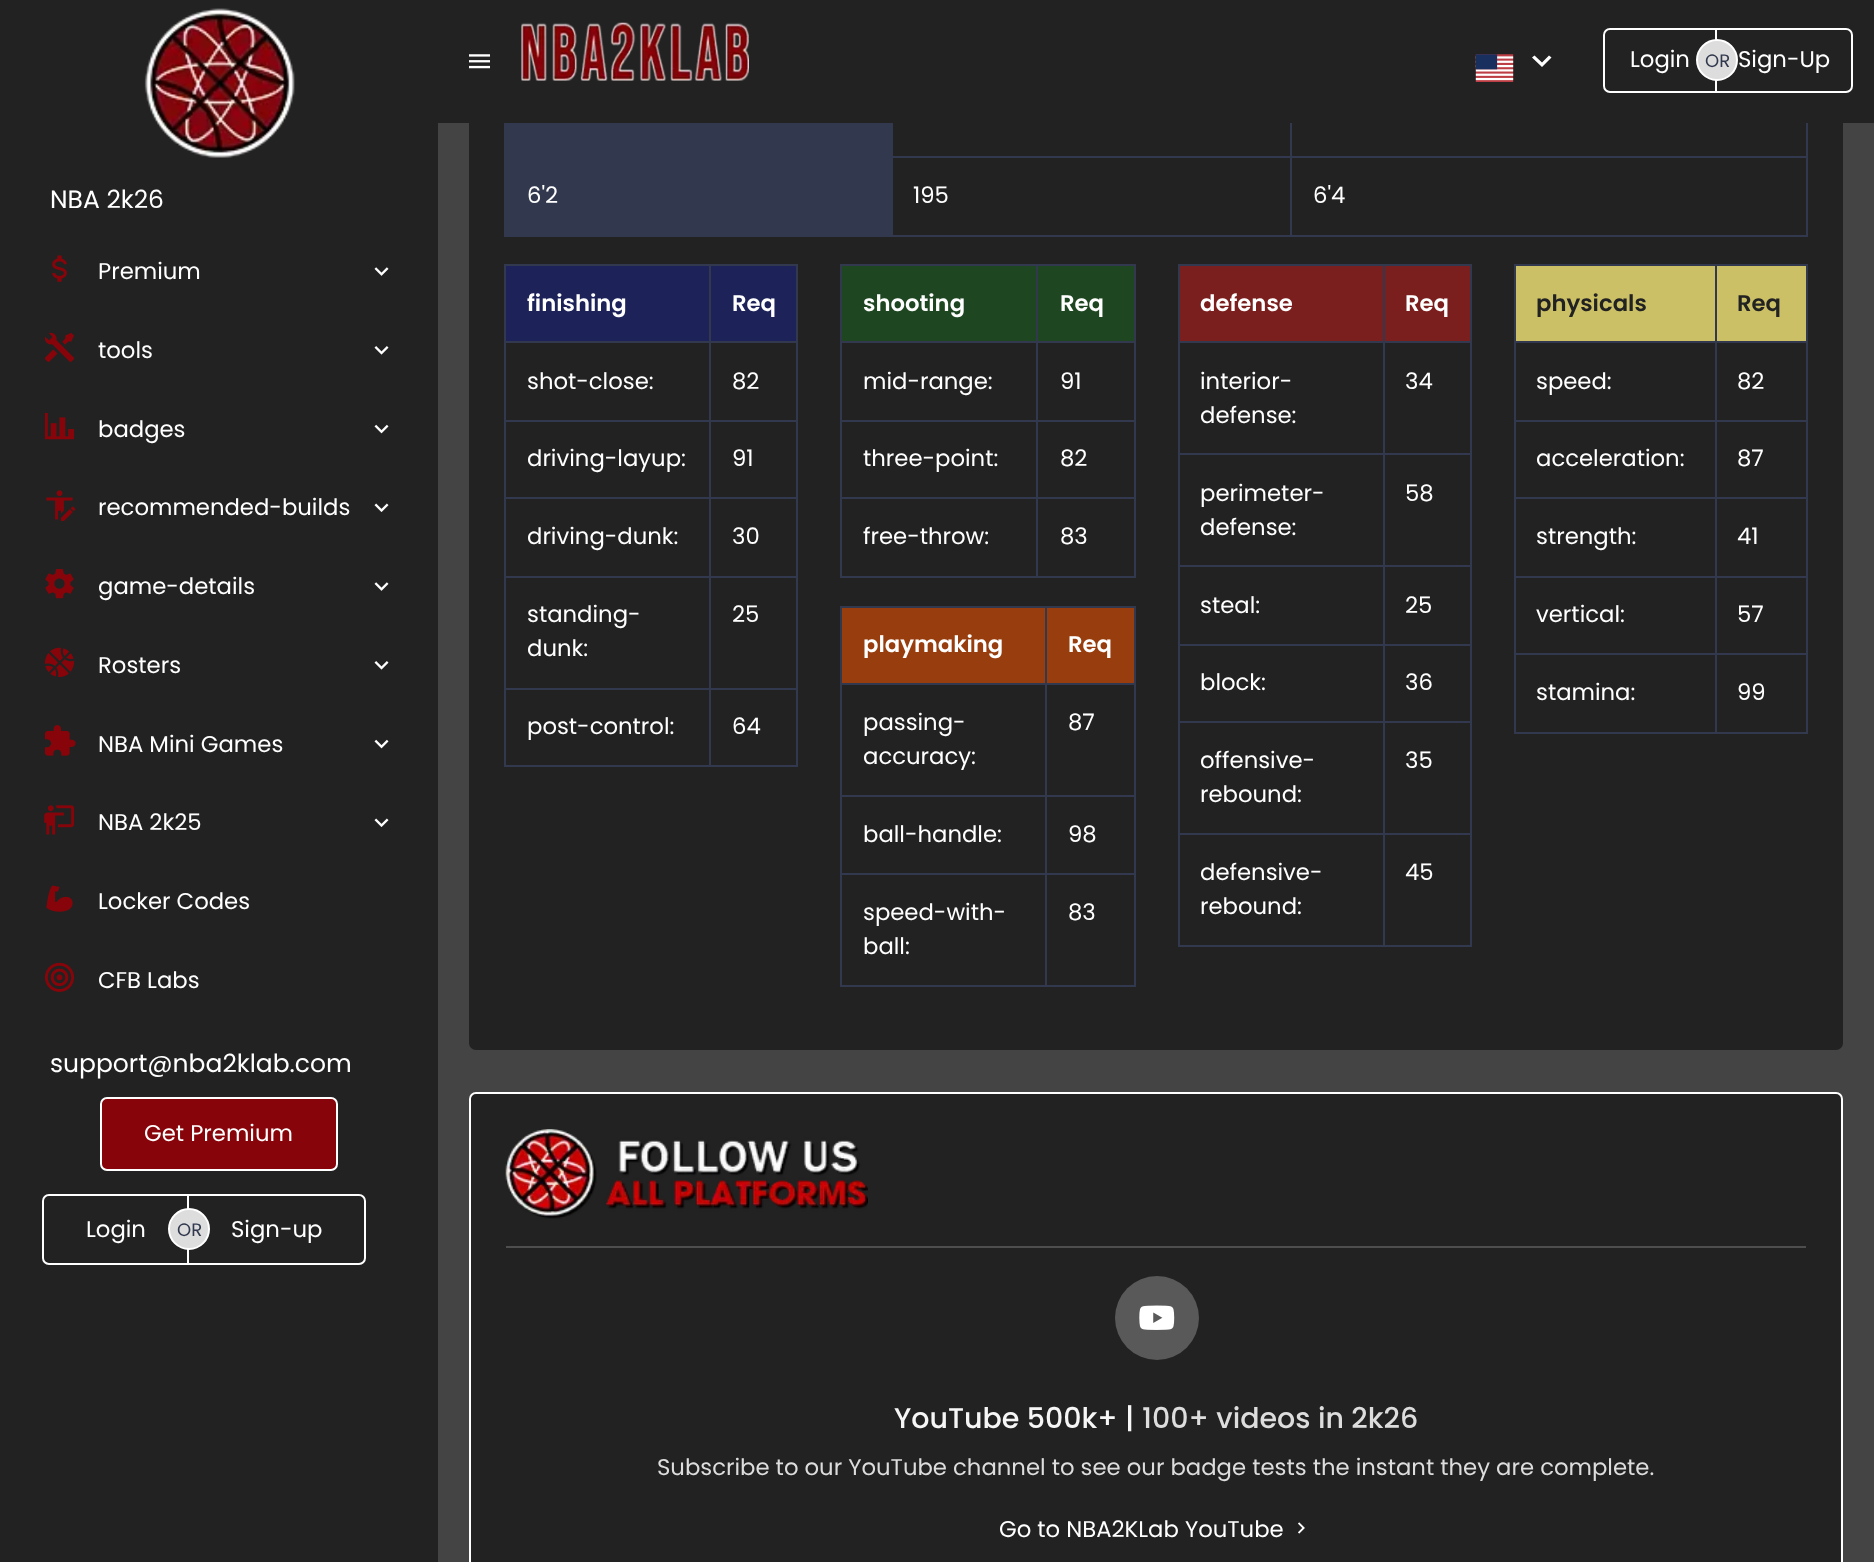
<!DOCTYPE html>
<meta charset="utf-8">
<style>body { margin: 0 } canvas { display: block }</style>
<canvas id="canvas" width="1874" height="1562"></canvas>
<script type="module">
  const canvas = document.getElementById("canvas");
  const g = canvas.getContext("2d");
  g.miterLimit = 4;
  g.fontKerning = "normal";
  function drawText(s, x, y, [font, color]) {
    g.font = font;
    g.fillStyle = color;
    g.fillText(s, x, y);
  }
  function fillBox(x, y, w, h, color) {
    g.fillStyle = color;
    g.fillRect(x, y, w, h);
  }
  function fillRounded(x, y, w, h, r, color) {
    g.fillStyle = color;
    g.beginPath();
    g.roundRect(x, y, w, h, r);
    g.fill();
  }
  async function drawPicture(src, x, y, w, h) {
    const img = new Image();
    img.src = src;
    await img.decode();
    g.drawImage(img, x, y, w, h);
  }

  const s1 = ["22.75px Poppins", "#FFFFFF"];
  const s2 = ["18px Poppins", "#32394E"];
  const s3 = ["25px Poppins", "#FFFFFF"];
  const s4 = ["600 22.75px Poppins", "#FFFFFF"];
  const s5 = ["600 22.75px Poppins", "#222222"];
  const s6 = ["500 28.5px Poppins", "#F6F6F6"];
  const s7 = ["500 28.5px Poppins", "#DDDDDD"];
  const s8 = ["22.75px Poppins", "#DDDDDD"];

  fillBox(0, 0, 1874, 1562, "#444444");
  fillRounded(469, 44, 1374, 1006, 7, "#222222");
  fillBox(438, 0, 1436, 123, "#222222");
  await drawPicture("pic1.png", 469, 54, 21, 15);
  await drawPicture("pic2.png", 521, 22, 228, 59);
  await drawPicture("pic3.png", 1475, 54, 39, 28);
  g.fillStyle = "#FFFFFF";
  g.beginPath();
  g.moveTo(1534.5, 55.5);
  g.lineTo(1542, 62.5);
  g.lineTo(1549, 55.5);
  g.lineTo(1551.5, 57.5);
  g.lineTo(1542, 67);
  g.lineTo(1532, 57.5);
  g.closePath();
  g.fill();
  g.beginPath();
  g.roundRect(1604, 29, 112, 63, [6, 0, 0, 6]);
  g.strokeStyle = "#FFFFFF";
  g.lineWidth = 2;
  g.stroke();
  drawText("Login", 1630, 67, s1);
  g.beginPath();
  g.roundRect(1716, 29, 136, 63, [0, 6, 6, 0]);
  g.stroke();
  g.fillStyle = "#DDDDDD";
  g.beginPath();
  g.arc(1717, 60, 20, 0, Math.PI * 2);
  g.fill();
  g.stroke();
  drawText("OR", 1705, 67, s2);
  drawText("Sign-Up", 1738, 67, s1);
  fillBox(0, 0, 438, 1562, "#222222");
  await drawPicture("pic4.png", 144, 8, 151, 150);
  drawText("NBA 2k26", 50, 208, s3);
  await drawPicture("pic5.png", 52, 255, 15, 27);
  drawText("Premium", 98, 279, s1);
  await drawPicture("pic6.png", 374, 267, 15, 9);
  await drawPicture("pic7.png", 45, 332, 29, 30);
  drawText("tools", 98, 358, s1);
  await drawPicture("pic8.png", 374, 346, 15, 9);
  await drawPicture("pic9.png", 44, 413, 31, 27);
  drawText("badges", 98, 437, s1);
  await drawPicture("pic10.png", 374, 424, 15, 10);
  await drawPicture("pic11.png", 46, 490, 30, 31);
  drawText("recommended-builds", 98, 515, s1);
  await drawPicture("pic12.png", 374, 503, 15, 9);
  await drawPicture("pic13.png", 45, 569, 29, 30);
  drawText("game-details", 98, 594, s1);
  await drawPicture("pic6.png", 374, 582, 15, 9);
  await drawPicture("pic14.png", 44, 647, 30, 30);
  drawText("Rosters", 98, 673, s1);
  await drawPicture("pic8.png", 374, 661, 15, 9);
  await drawPicture("pic15.png", 44, 725, 32, 31);
  drawText("NBA Mini Games", 98, 752, s1);
  await drawPicture("pic10.png", 374, 739, 15, 10);
  await drawPicture("pic16.png", 44, 805, 31, 30);
  drawText("NBA 2k25", 98, 830, s1);
  await drawPicture("pic12.png", 374, 818, 15, 9);
  await drawPicture("pic17.png", 46, 885, 27, 27);
  drawText("Locker Codes", 98, 909, s1);
  await drawPicture("pic18.png", 45, 962, 29, 30);
  drawText("CFB Labs", 98, 988, s1);
  drawText("support@nba2klab.com", 50, 1072, s3);
  g.fillStyle = "#87050A";
  g.beginPath();
  g.roundRect(101, 1098, 236, 72, 6);
  g.fill();
  g.stroke();
  drawText("Get Premium", 144, 1141, s1);
  g.beginPath();
  g.roundRect(43, 1195, 145, 69, [6, 0, 0, 6]);
  g.stroke();
  drawText("Login", 86, 1237, s1);
  g.beginPath();
  g.roundRect(188, 1195, 177, 69, [0, 6, 6, 0]);
  g.stroke();
  g.fillStyle = "#DDDDDD";
  g.beginPath();
  g.arc(189, 1229, 20, 0, Math.PI * 2);
  g.fill();
  g.stroke();
  drawText("OR", 177, 1236, s2);
  drawText("Sign-up", 231, 1237, s1);
  fillBox(1806, 123, 2, 113, "#32394E");
  fillBox(504, 235, 1304, 2, "#32394E");
  fillBox(504, 123, 2, 113, "#32394E");
  fillBox(506, 123, 385, 33, "#32394E");
  fillBox(504, 156, 1304, 2, "#32394E");
  fillBox(506, 158, 385, 77, "#32394E");
  drawText("6'2", 527, 203, s1);
  fillBox(891, 123, 2, 113, "#32394E");
  drawText("195", 913, 203, s1);
  fillBox(1290, 123, 2, 113, "#32394E");
  drawText("6'4", 1313, 203, s1);
  fillBox(504, 264, 294, 2, "#32394E");
  fillBox(796, 264, 2, 503, "#32394E");
  fillBox(504, 765, 294, 2, "#32394E");
  fillBox(504, 264, 2, 503, "#32394E");
  fillBox(506, 266, 203, 75, "#1D2359");
  drawText("finishing", 527, 311, s4);
  fillBox(711, 266, 85, 75, "#1D2359");
  drawText("Req", 732, 311, s4);
  fillBox(504, 341, 294, 2, "#32394E");
  drawText("shot-close:", 527, 389, s1);
  drawText("82", 732, 389, s1);
  fillBox(504, 420, 294, 2, "#32394E");
  drawText("driving-layup:", 527, 466, s1);
  drawText("91", 732, 466, s1);
  fillBox(504, 497, 294, 2, "#32394E");
  drawText("driving-dunk:", 527, 544, s1);
  drawText("30", 732, 544, s1);
  fillBox(504, 576, 294, 2, "#32394E");
  drawText("standing-", 527, 622, s1);
  drawText("dunk:", 527, 656, s1);
  drawText("25", 732, 622, s1);
  fillBox(504, 688, 294, 2, "#32394E");
  drawText("post-control:", 527, 734, s1);
  fillBox(709, 264, 2, 503, "#32394E");
  drawText("64", 732, 734, s1);
  fillBox(840, 264, 296, 2, "#32394E");
  fillBox(1134, 264, 2, 314, "#32394E");
  fillBox(840, 576, 296, 2, "#32394E");
  fillBox(840, 264, 2, 314, "#32394E");
  fillBox(842, 266, 194, 75, "#1E4621");
  drawText("shooting", 863, 311, s4);
  fillBox(1038, 266, 96, 75, "#1E4621");
  drawText("Req", 1060, 311, s4);
  fillBox(840, 341, 296, 2, "#32394E");
  drawText("mid-range:", 863, 389, s1);
  drawText("91", 1060, 389, s1);
  fillBox(840, 420, 296, 2, "#32394E");
  drawText("three-point:", 863, 466, s1);
  drawText("82", 1060, 466, s1);
  fillBox(840, 497, 296, 2, "#32394E");
  drawText("free-throw:", 863, 544, s1);
  fillBox(1036, 264, 2, 314, "#32394E");
  drawText("83", 1060, 544, s1);
  fillBox(840, 606, 296, 2, "#32394E");
  fillBox(1134, 606, 2, 381, "#32394E");
  fillBox(840, 985, 296, 2, "#32394E");
  fillBox(840, 606, 2, 381, "#32394E");
  fillBox(842, 608, 203, 75, "#983E0E");
  drawText("playmaking", 863, 652, s4);
  fillBox(1047, 608, 87, 75, "#983E0E");
  drawText("Req", 1068, 652, s4);
  fillBox(840, 683, 296, 2, "#32394E");
  drawText("passing-", 863, 730, s1);
  drawText("accuracy:", 863, 764, s1);
  drawText("87", 1068, 730, s1);
  fillBox(840, 795, 296, 2, "#32394E");
  drawText("ball-handle:", 863, 842, s1);
  drawText("98", 1068, 842, s1);
  fillBox(840, 873, 296, 2, "#32394E");
  drawText("speed-with-", 863, 920, s1);
  drawText("ball:", 863, 954, s1);
  fillBox(1045, 606, 2, 381, "#32394E");
  drawText("83", 1068, 920, s1);
  fillBox(1178, 264, 294, 2, "#32394E");
  fillBox(1470, 264, 2, 683, "#32394E");
  fillBox(1178, 945, 294, 2, "#32394E");
  fillBox(1178, 264, 2, 683, "#32394E");
  fillBox(1180, 266, 203, 75, "#7B1E1E");
  drawText("defense", 1200, 311, s4);
  fillBox(1385, 266, 85, 75, "#7B1E1E");
  drawText("Req", 1405, 311, s4);
  fillBox(1178, 341, 294, 2, "#32394E");
  drawText("interior-", 1200, 389, s1);
  drawText("defense:", 1200, 423, s1);
  drawText("34", 1405, 389, s1);
  fillBox(1178, 453, 294, 2, "#32394E");
  drawText("perimeter-", 1200, 501, s1);
  drawText("defense:", 1200, 535, s1);
  drawText("58", 1405, 501, s1);
  fillBox(1178, 565, 294, 2, "#32394E");
  drawText("steal:", 1200, 613, s1);
  drawText("25", 1405, 613, s1);
  fillBox(1178, 644, 294, 2, "#32394E");
  drawText("block:", 1200, 690, s1);
  drawText("36", 1405, 690, s1);
  fillBox(1178, 721, 294, 2, "#32394E");
  drawText("offensive-", 1200, 768, s1);
  drawText("rebound:", 1200, 802, s1);
  drawText("35", 1405, 768, s1);
  fillBox(1178, 833, 294, 2, "#32394E");
  drawText("defensive-", 1200, 880, s1);
  drawText("rebound:", 1200, 914, s1);
  fillBox(1383, 264, 2, 683, "#32394E");
  drawText("45", 1405, 880, s1);
  fillBox(1514, 264, 294, 2, "#32394E");
  fillBox(1806, 264, 2, 469, "#32394E");
  fillBox(1514, 732, 294, 2, "#32394E");
  fillBox(1514, 264, 2, 469, "#32394E");
  fillBox(1516, 266, 199, 75, "#CCC066");
  drawText("physicals", 1536, 311, s5);
  fillBox(1717, 266, 89, 75, "#CCC066");
  drawText("Req", 1737, 311, s5);
  fillBox(1514, 341, 294, 2, "#32394E");
  drawText("speed:", 1536, 389, s1);
  drawText("82", 1737, 389, s1);
  fillBox(1514, 420, 294, 2, "#32394E");
  drawText("acceleration:", 1536, 466, s1);
  drawText("87", 1737, 466, s1);
  fillBox(1514, 497, 294, 2, "#32394E");
  drawText("strength:", 1536, 544, s1);
  drawText("41", 1737, 544, s1);
  fillBox(1514, 576, 294, 2, "#32394E");
  drawText("vertical:", 1536, 622, s1);
  drawText("57", 1737, 622, s1);
  fillBox(1514, 653, 294, 2, "#32394E");
  drawText("stamina:", 1536, 700, s1);
  fillBox(1715, 264, 2, 469, "#32394E");
  drawText("99", 1737, 700, s1);
  g.fillStyle = "#222222";
  g.beginPath();
  g.roundRect(470, 1093, 1372, 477, 6);
  g.fill();
  g.stroke();
  await drawPicture("pic19.png", 505, 1129, 363, 90);
  fillBox(506, 1246, 1300, 2, "#4E4E4E");
  g.fillStyle = "#595959";
  g.beginPath();
  g.arc(1157, 1318, 42, 0, Math.PI * 2);
  g.fill();
  await drawPicture("pic20.png", 1139, 1305, 36, 25);
  drawText("YouTube 500k+ |", 894, 1428, s6);
  drawText("100+ videos in 2k26", 1142, 1428, s7);
  drawText("Subscribe to our YouTube channel to see our badge tests the instant they are complete.", 657, 1475, s8);
  drawText("Go to NBA2KLab YouTube", 999, 1537, s1);
  await drawPicture("pic21.png", 1298, 1522, 7, 12);
</script>
